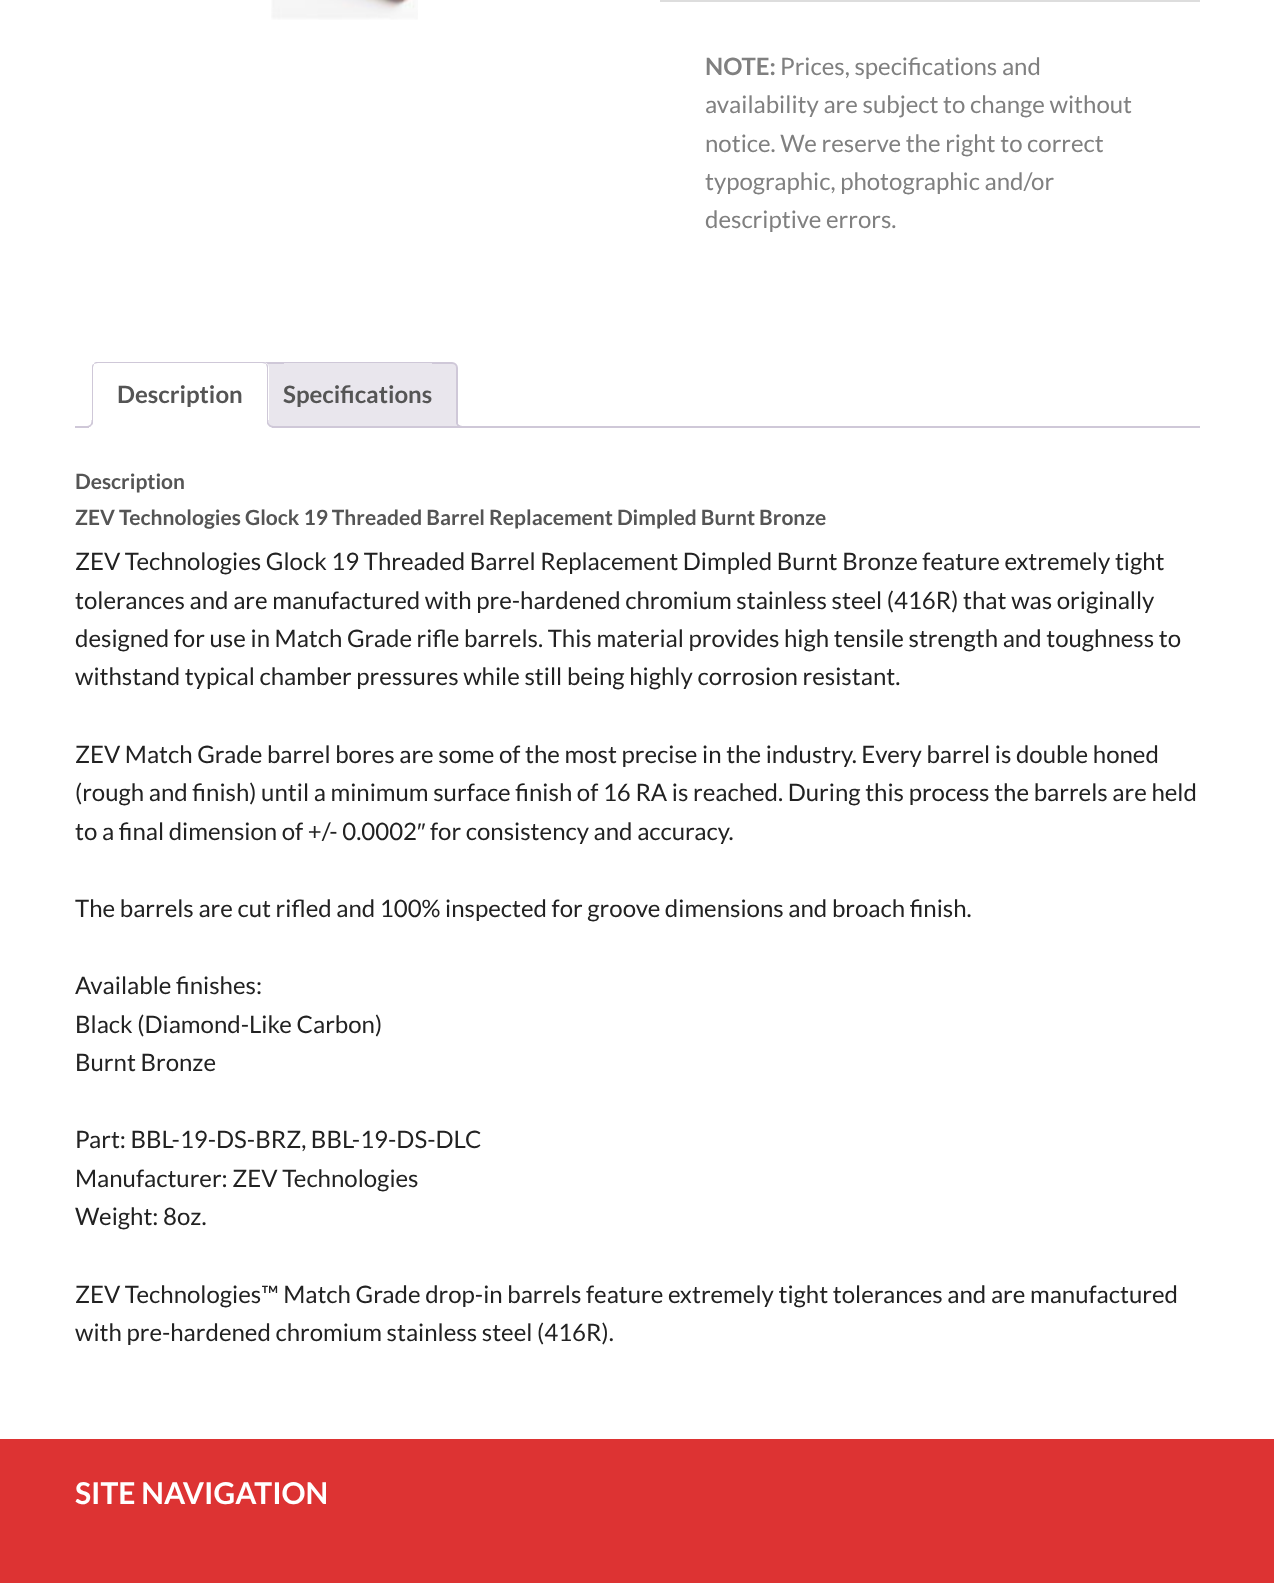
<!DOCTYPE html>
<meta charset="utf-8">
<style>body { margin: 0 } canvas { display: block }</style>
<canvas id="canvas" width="1274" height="1583"></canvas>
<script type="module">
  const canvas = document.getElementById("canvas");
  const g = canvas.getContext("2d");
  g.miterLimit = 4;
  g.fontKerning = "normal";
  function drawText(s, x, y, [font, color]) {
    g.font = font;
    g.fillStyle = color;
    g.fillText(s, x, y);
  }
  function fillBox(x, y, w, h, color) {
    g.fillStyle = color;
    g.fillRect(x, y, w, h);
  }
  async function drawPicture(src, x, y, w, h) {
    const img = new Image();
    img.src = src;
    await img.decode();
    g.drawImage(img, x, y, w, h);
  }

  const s1 = ["bold 24px Lato", "#808080"];
  const s2 = ["24px Lato", "#808080"];
  const s3 = ["bold 24px Lato", "#555555"];
  const s4 = ["bold 21px Lato", "#555555"];
  const s5 = ["24px Lato", "#222222"];
  const s6 = ["24px Liberation Sans", "#222222"];
  const s7 = ["bold 30px Lato", "#FFFFFF"];

  fillBox(0, 0, 1274, 1583, "#FFFFFF");
  await drawPicture("pic1.png", 271, 0, 147, 20);
  fillBox(660, 0, 540, 2, "#DDDDDD");
  drawText("NOTE:", 705, 75, s1);
  drawText("Prices, specifications and", 780, 75, s2);
  drawText("availability are subject to change without", 705, 113, s2);
  drawText("notice. We reserve the right to correct", 705, 152, s2);
  drawText("typographic, photographic and/or", 705, 190, s2);
  drawText("descriptive errors.", 705, 228, s2);
  g.fillStyle = "#E9E6ED";
  g.beginPath();
  g.roundRect(259, 363, 198, 64, [5, 5, 0, 0]);
  g.fill();
  g.strokeStyle = "#CFC8D8";
  g.lineWidth = 2;
  g.stroke();
  g.save();
  g.beginPath();
  g.rect(75, 362, 1125, 66);
  g.clip();
  g.beginPath();
  g.moveTo(453, 423);
  g.bezierCurveTo(453, 429, 455, 431, 461, 431);
  g.lineTo(461, 427.5);
  g.bezierCurveTo(458.5, 427, 457, 425.5, 456, 423);
  g.closePath();
  g.fill();
  g.restore();
  g.fillStyle = "#CFC8D8";
  g.beginPath();
  g.moveTo(456, 420);
  g.lineTo(463.5, 420);
  g.lineTo(463.5, 427.5);
  g.bezierCurveTo(459.5, 427.5, 456, 426, 456, 421.5);
  g.closePath();
  g.moveTo(457.5, 420);
  g.lineTo(463.5, 420);
  g.lineTo(463.5, 426);
  g.bezierCurveTo(460.5, 426, 457.5, 425, 457.5, 421.5);
  g.closePath();
  g.fill("evenodd");
  fillBox(75, 426, 1125, 2, "#CFC8D8");
  g.fillStyle = "#FFFFFF";
  g.beginPath();
  g.roundRect(92, 362, 177, 66, [6, 6, 0, 0]);
  g.fill();
  g.fillStyle = "#CFC8D8";
  g.beginPath();
  g.moveTo(98, 362);
  g.bezierCurveTo(96, 362, 94, 362, 94, 364);
  g.bezierCurveTo(95, 364, 96, 363, 98, 363);
  g.lineTo(262, 363);
  g.bezierCurveTo(264, 363, 265, 364, 266, 364);
  g.bezierCurveTo(266, 362, 264, 362, 262, 362);
  g.closePath();
  g.fill();
  g.beginPath();
  g.moveTo(268, 427);
  g.lineTo(268, 368);
  g.bezierCurveTo(268, 366, 268, 364, 266, 364);
  g.bezierCurveTo(266, 365, 267, 366, 267, 368);
  g.lineTo(267, 426);
  g.closePath();
  g.fill();
  g.fillStyle = "#FFFFFF";
  g.beginPath();
  g.moveTo(92, 428);
  g.lineTo(93, 426);
  g.lineTo(267, 426);
  g.lineTo(268, 427);
  g.lineTo(268, 428);
  g.closePath();
  g.fill();
  g.fillStyle = "#CFC8D8";
  g.beginPath();
  g.moveTo(94, 364);
  g.bezierCurveTo(92, 364, 92, 366, 92, 368);
  g.lineTo(92, 427);
  g.lineTo(93, 426);
  g.lineTo(93, 368);
  g.bezierCurveTo(93, 366, 94, 365, 94, 364);
  g.closePath();
  g.fill();
  drawText("Description", 117, 403, s3);
  g.save();
  g.beginPath();
  g.rect(75, 362, 1125, 66);
  g.clip();
  g.fillStyle = "#FFFFFF";
  g.beginPath();
  g.moveTo(89, 427);
  g.lineTo(89, 431);
  g.bezierCurveTo(94.5, 431, 96, 428, 96, 423);
  g.lineTo(93, 423);
  g.bezierCurveTo(92.5, 425, 91, 426.5, 89, 427);
  g.closePath();
  g.fill();
  g.restore();
  g.fillStyle = "#CFC8D8";
  g.beginPath();
  g.moveTo(85.5, 420);
  g.lineTo(93, 420);
  g.bezierCurveTo(93, 425.5, 91, 427.5, 85.5, 427.5);
  g.closePath();
  g.moveTo(85.5, 420);
  g.lineTo(91.5, 420);
  g.bezierCurveTo(91.5, 424.5, 90, 426, 85.5, 426);
  g.closePath();
  g.fill("evenodd");
  g.save();
  g.beginPath();
  g.rect(75, 362, 1125, 66);
  g.clip();
  g.fillStyle = "#FFFFFF";
  g.beginPath();
  g.moveTo(264, 423);
  g.bezierCurveTo(264, 429, 266, 431, 272, 431);
  g.lineTo(272, 427.5);
  g.bezierCurveTo(269.5, 427, 268, 425.5, 267, 423);
  g.closePath();
  g.fill();
  g.restore();
  g.beginPath();
  g.moveTo(267, 420);
  g.lineTo(274.5, 420);
  g.lineTo(274.5, 427.5);
  g.bezierCurveTo(270.5, 427.5, 267, 426, 267, 421.5);
  g.closePath();
  g.moveTo(268.5, 420);
  g.lineTo(274.5, 420);
  g.lineTo(274.5, 426);
  g.bezierCurveTo(271.5, 426, 268.5, 425, 268.5, 421.5);
  g.closePath();
  g.fill("evenodd");
  fillBox(284, 363, 148, 1, "#E9E6ED");
  drawText("Specifications", 283, 403, s3);
  drawText("Description", 75, 489, s4);
  drawText("ZEV Technologies Glock 19 Threaded Barrel Replacement Dimpled Burnt Bronze", 75, 525, s4);
  drawText("ZEV Technologies Glock 19 Threaded Barrel Replacement Dimpled Burnt Bronze feature extremely tight", 75, 570, s5);
  drawText("tolerances and are manufactured with pre-hardened chromium stainless steel (416R) that was originally", 75, 609, s5);
  drawText("designed for use in Match Grade rifle barrels. This material provides high tensile strength and toughness to", 75, 647, s5);
  drawText("withstand typical chamber pressures while still being highly corrosion resistant.", 75, 685, s5);
  drawText("ZEV Match Grade barrel bores are some of the most precise in the industry. Every barrel is double honed", 75, 763, s5);
  drawText("(rough and finish) until a minimum surface finish of 16 RA is reached. During this process the barrels are held", 75, 801, s5);
  drawText("to a final dimension of +/- 0.0002", 75, 840, s5);
  drawText("″", 417, 840, s6);
  drawText("for consistency and accuracy.", 430, 840, s5);
  drawText("The barrels are cut rifled and 100% inspected for groove dimensions and broach finish.", 75, 917, s5);
  drawText("Available finishes:", 75, 994, s5);
  drawText("Black (Diamond-Like Carbon)", 75, 1033, s5);
  drawText("Burnt Bronze", 75, 1071, s5);
  drawText("Part: BBL-19-DS-BRZ, BBL-19-DS-DLC", 75, 1148, s5);
  drawText("Manufacturer: ZEV Technologies", 75, 1187, s5);
  drawText("Weight: 8oz.", 75, 1225, s5);
  drawText("ZEV Technologies™ Match Grade drop-in barrels feature extremely tight tolerances and are manufactured", 75, 1303, s5);
  drawText("with pre-hardened chromium stainless steel (416R).", 75, 1341, s5);
  fillBox(0, 1439, 1274, 144, "#DD3333");
  drawText("SITE NAVIGATION", 75, 1504, s7);
</script>
